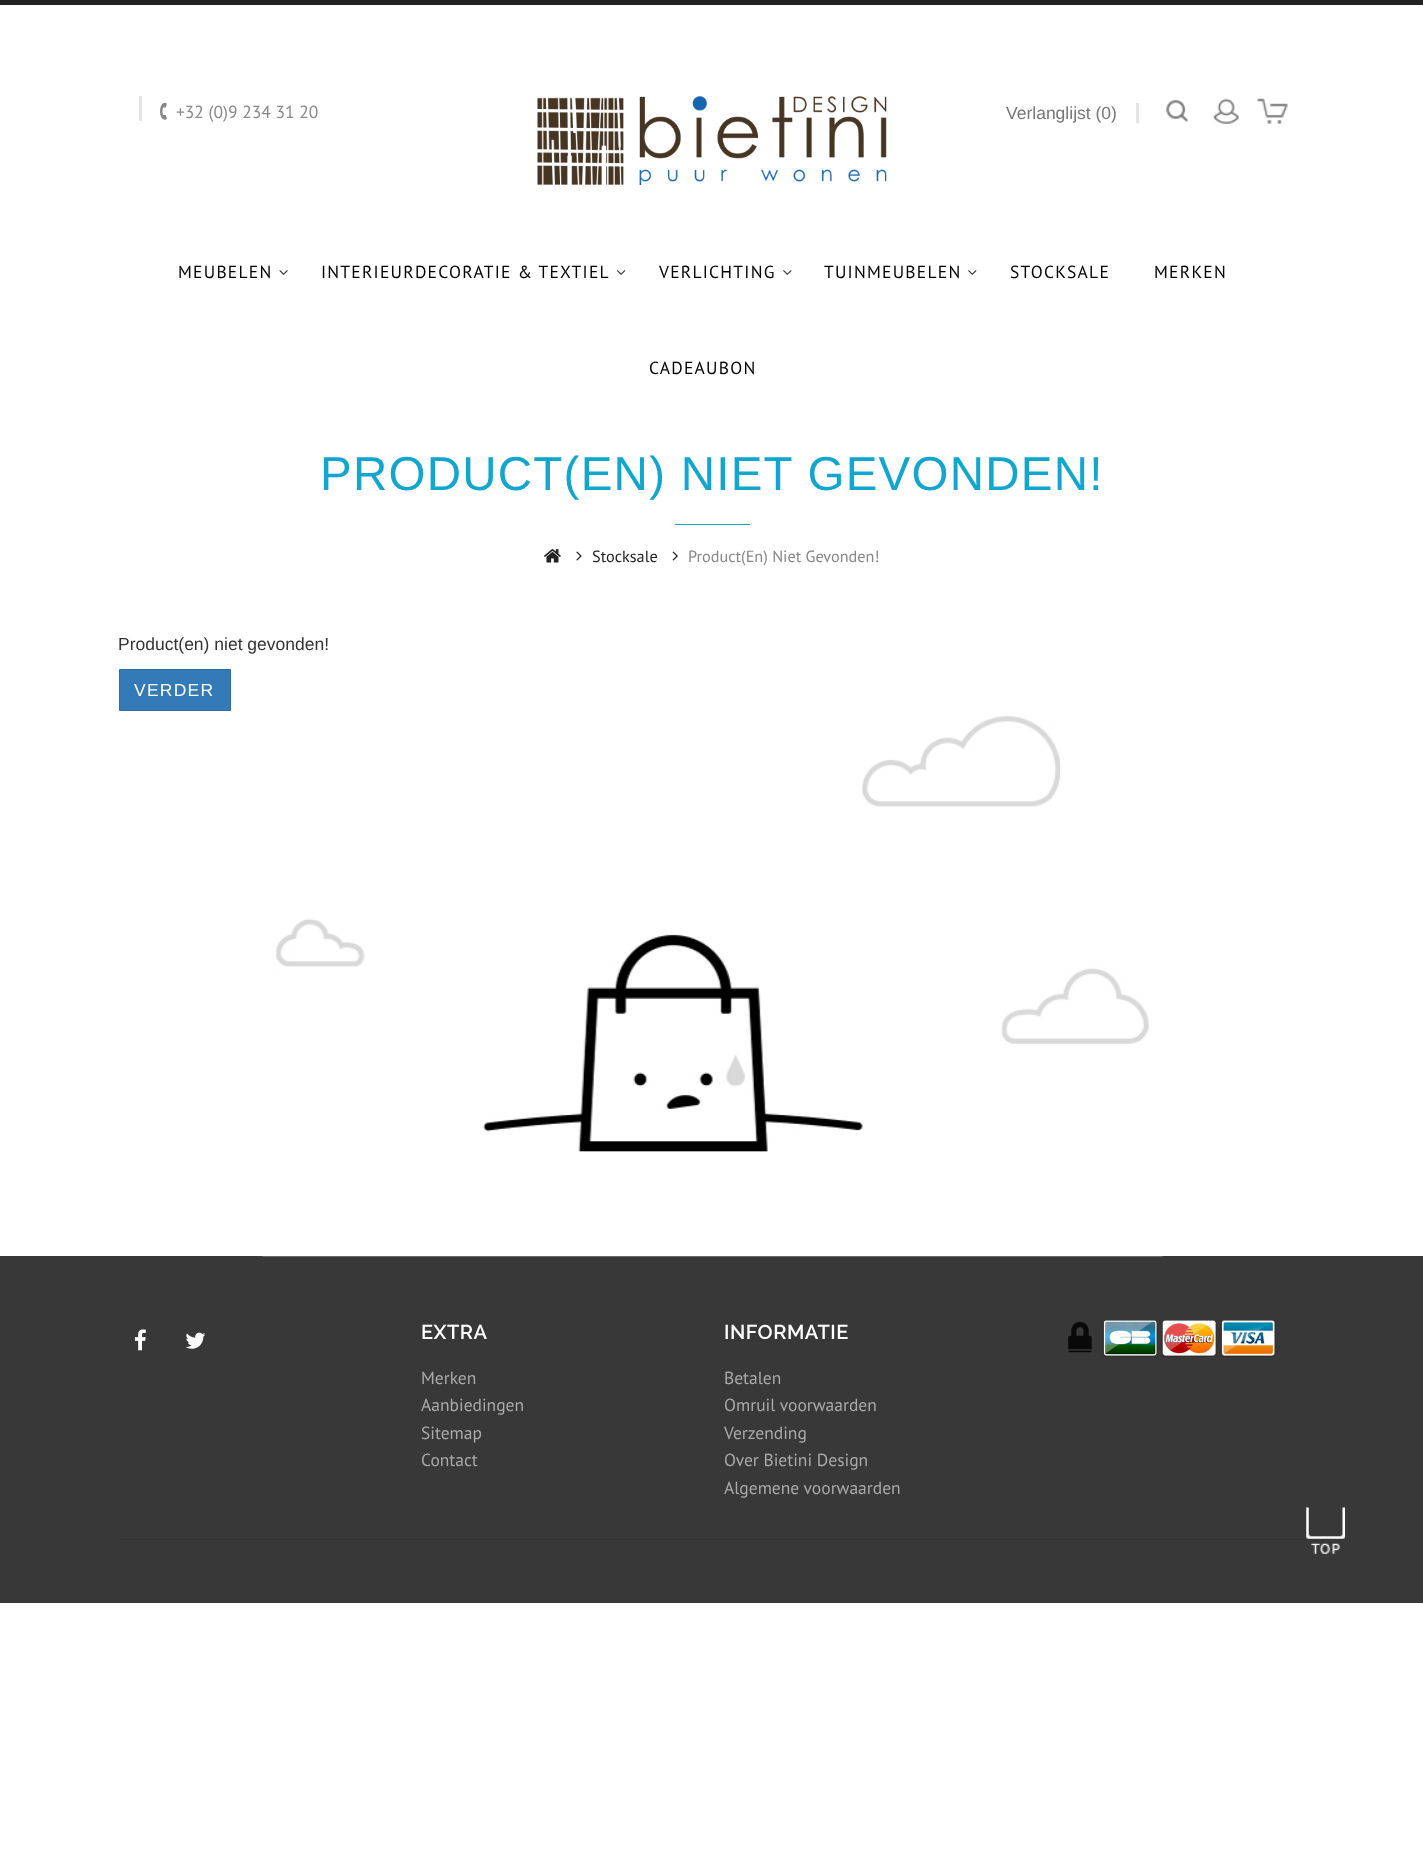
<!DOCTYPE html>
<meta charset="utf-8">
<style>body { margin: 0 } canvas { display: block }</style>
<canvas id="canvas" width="1423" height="1859"></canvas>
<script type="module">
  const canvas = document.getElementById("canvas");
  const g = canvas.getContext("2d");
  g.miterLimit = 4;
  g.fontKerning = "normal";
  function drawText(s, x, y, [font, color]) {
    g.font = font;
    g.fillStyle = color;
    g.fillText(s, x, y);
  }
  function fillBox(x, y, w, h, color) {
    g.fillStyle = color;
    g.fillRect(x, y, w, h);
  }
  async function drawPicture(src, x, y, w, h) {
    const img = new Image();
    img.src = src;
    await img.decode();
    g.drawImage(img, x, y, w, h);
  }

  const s1 = ["17.5px PT Sans", "#888888"];
  const s2 = ["17.5px Liberation Sans", "#777777"];
  const s3 = ["17.5px PT Sans", "#000000"];
  const s4 = ["47.5px Liberation Sans", "#12A6CF"];
  const s5 = ["16.25px PT Sans", "#232323"];
  const s6 = ["16.25px PT Sans", "#888888"];
  const s7 = ["17.5px Liberation Sans", "#333333"];
  const s8 = ["17.5px Liberation Sans", "#FFFFFF"];
  const s9 = ["600 20px Raleway", "#FFFFFF"];
  const s10 = ["17.5px PT Sans", "#AAAAAA"];

  fillBox(0, 0, 1423, 1859, "#FFFFFF");
  fillBox(0, 0, 1423, 5, "#222222");
  fillBox(139, 96, 3, 25, "#E5E5E5");
  await drawPicture("pic1.png", 160, 102, 7, 18);
  drawText("+32 (0)9 234 31 20", 176, 118, s1);
  await drawPicture("pic2.png", 537, 96, 350, 89);
  drawText("Verlanglijst (0)", 1006, 119, s2);
  fillBox(1136, 103, 3, 20, "#E5E5E5");
  await drawPicture("pic3.png", 1166, 99, 23, 23);
  await drawPicture("pic4.png", 1213, 98, 26, 26);
  await drawPicture("pic5.png", 1257, 98, 31, 26);
  g.letterSpacing = "1.25px";
  drawText("MEUBELEN", 178, 278, s3);
  await drawPicture("pic6.png", 279, 270, 9, 5);
  drawText("INTERIEURDECORATIE & TEXTIEL", 321, 278, s3);
  await drawPicture("pic7.png", 616, 270, 10, 5);
  drawText("VERLICHTING", 659, 278, s3);
  await drawPicture("pic8.png", 783, 270, 9, 5);
  drawText("TUINMEUBELEN", 824, 278, s3);
  await drawPicture("pic8.png", 968, 270, 9, 5);
  drawText("STOCKSALE", 1010, 278, s3);
  drawText("MERKEN", 1154, 278, s3);
  drawText("CADEAUBON", 649, 374, s3);
  drawText("PRODUCT(EN) NIET GEVONDEN!", 320, 490, s4);
  fillBox(675, 524, 75, 1, "#12A6CF");
  await drawPicture("pic9.png", 544, 549, 17, 14);
  await drawPicture("pic10.png", 576, 551, 6, 10);
  g.letterSpacing = "0px";
  drawText("Stocksale", 592, 562, s5);
  await drawPicture("pic11.png", 672, 551, 6, 10);
  drawText("Product(En) Niet Gevonden!", 688, 562, s6);
  fillBox(0, 1256, 1423, 347, "#383838");
  await drawPicture("pic12.png", 262, 716, 901, 541);
  drawText("Product(en) niet gevonden!", 118, 650, s7);
  g.fillStyle = "#337AB7";
  g.beginPath();
  g.rect(119.5, 669.5, 111, 41);
  g.fill();
  g.strokeStyle = "#2E6DA4";
  g.stroke();
  g.letterSpacing = "1.25px";
  drawText("VERDER", 134, 696, s8);
  await drawPicture("pic13.png", 134, 1329, 12, 22);
  await drawPicture("pic14.png", 185, 1332, 21, 17);
  g.letterSpacing = "0.5px";
  drawText("EXTRA", 421, 1339, s9);
  g.letterSpacing = "0px";
  drawText("Merken", 421, 1384, s10);
  drawText("Aanbiedingen", 421, 1411, s10);
  drawText("Sitemap", 421, 1439, s10);
  drawText("Contact", 421, 1466, s10);
  g.letterSpacing = "0.5px";
  drawText("INFORMATIE", 724, 1339, s9);
  g.letterSpacing = "0px";
  drawText("Betalen", 724, 1384, s10);
  drawText("Omruil voorwaarden", 724, 1411, s10);
  drawText("Verzending", 724, 1439, s10);
  drawText("Over Bietini Design", 724, 1466, s10);
  drawText("Algemene voorwaarden", 724, 1494, s10);
  await drawPicture("pic15.png", 1068, 1320, 208, 37);
  fillBox(119, 1539, 1187, 1, "#333333");
  await drawPicture("pic16.png", 1306, 1507, 39, 47);
</script>
